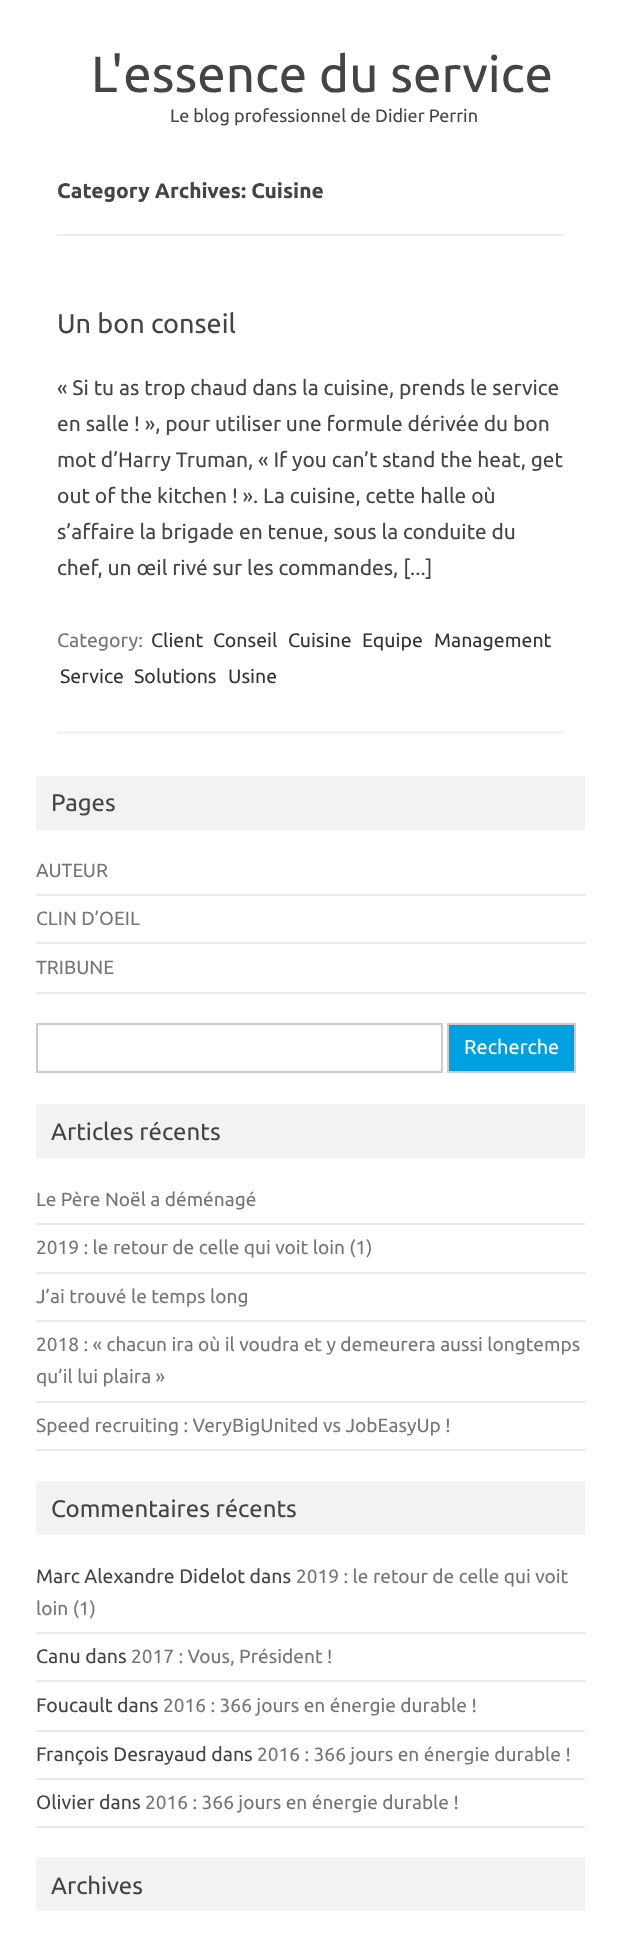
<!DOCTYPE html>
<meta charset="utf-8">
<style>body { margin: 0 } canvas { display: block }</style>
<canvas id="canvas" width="621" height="1947"></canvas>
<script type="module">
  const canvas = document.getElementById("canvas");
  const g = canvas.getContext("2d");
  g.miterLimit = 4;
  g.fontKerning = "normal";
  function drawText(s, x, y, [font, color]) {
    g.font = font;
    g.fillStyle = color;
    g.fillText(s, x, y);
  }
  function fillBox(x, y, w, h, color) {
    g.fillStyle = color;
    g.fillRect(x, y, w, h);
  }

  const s1 = ["51px Ubuntu", "#444444"];
  const s2 = ["18px Ubuntu", "#444444"];
  const s3 = ["bold 21px Ubuntu", "#444444"];
  const s4 = ["27px Ubuntu", "#444444"];
  const s5 = ["21px Ubuntu", "#444444"];
  const s6 = ["19.5px Ubuntu", "#757575"];
  const s7 = ["19.5px Ubuntu", "#333333"];
  const s8 = ["24px Ubuntu", "#444444"];
  const s9 = ["19.1px Ubuntu", "#757575"];
  const s10 = ["20px Ubuntu", "#FFFFFF"];
  const s11 = ["19.5px Ubuntu", "#444444"];

  fillBox(0, 0, 621, 1947, "#FFFFFF");
  drawText("L'essence du service", 91, 92, s1);
  drawText("Le blog professionnel de Didier Perrin", 170, 122, s2);
  fillBox(57, 234, 507, 2, "#EDEDED");
  drawText("Category Archives: Cuisine", 57, 198, s3);
  fillBox(57, 731, 507, 3, "#F3F3F3");
  drawText("Un bon conseil", 57, 333, s4);
  drawText("« Si tu as trop chaud dans la cuisine, prends le service", 57, 395, s5);
  drawText("en salle ! », pour utiliser une formule dérivée du bon", 57, 431, s5);
  drawText("mot d’Harry Truman, « If you can’t stand the heat, get", 57, 467, s5);
  drawText("out of the kitchen ! ». La cuisine, cette halle où", 57, 503, s5);
  drawText("s’affaire la brigade en tenue, sous la conduite du", 57, 539, s5);
  drawText("chef, un œil rivé sur les commandes, [...]", 57, 575, s5);
  drawText("Category:", 57, 647, s6);
  drawText("Client", 151, 647, s7);
  drawText("Conseil", 213, 647, s7);
  drawText("Cuisine", 288, 647, s7);
  drawText("Equipe", 362, 647, s7);
  drawText("Management", 434, 647, s7);
  drawText("Service", 60, 683, s7);
  drawText("Solutions", 134, 683, s7);
  drawText("Usine", 228, 683, s7);
  fillBox(36, 776, 549, 54, "#F2F2F2");
  drawText("Pages", 51, 811, s8);
  fillBox(36, 894, 549, 2, "#E9E9E9");
  drawText("AUTEUR", 36, 877, s9);
  fillBox(36, 942, 549, 2, "#E9E9E9");
  drawText("CLIN D’OEIL", 36, 925, s9);
  fillBox(36, 992, 549, 2, "#E9E9E9");
  drawText("TRIBUNE", 36, 974, s9);
  g.strokeStyle = "#CCCCCC";
  g.lineWidth = 2;
  g.strokeRect(37, 1024, 405, 48);
  g.fillStyle = "#00A1E0";
  g.beginPath();
  g.rect(448, 1024, 127, 48);
  g.fill();
  g.stroke();
  drawText("Recherche", 464, 1054, s10);
  fillBox(36, 1104, 549, 54, "#F2F2F2");
  drawText("Articles récents", 51, 1140, s8);
  fillBox(36, 1223, 549, 2, "#E9E9E9");
  drawText("Le Père Noël a déménagé", 36, 1206, s9);
  fillBox(36, 1272, 549, 2, "#E9E9E9");
  drawText("2019 : le retour de celle qui voit loin (1)", 36, 1254, s9);
  fillBox(36, 1320, 549, 2, "#E9E9E9");
  drawText("J’ai trouvé le temps long", 36, 1303, s9);
  fillBox(36, 1401, 549, 2, "#E9E9E9");
  drawText("2018 : « chacun ira où il voudra et y demeurera aussi longtemps", 36, 1351, s9);
  drawText("qu’il lui plaira »", 36, 1383, s9);
  fillBox(36, 1449, 549, 2, "#E9E9E9");
  drawText("Speed recruiting : VeryBigUnited vs JobEasyUp !", 36, 1432, s9);
  fillBox(36, 1481, 549, 54, "#F2F2F2");
  drawText("Commentaires récents", 51, 1517, s8);
  fillBox(36, 1632, 549, 2, "#E9E9E9");
  drawText("Marc Alexandre Didelot dans", 36, 1583, s11);
  drawText("2019 : le retour de celle qui voit", 296, 1583, s9);
  drawText("loin (1)", 36, 1615, s9);
  fillBox(36, 1680, 549, 2, "#E9E9E9");
  drawText("Canu dans", 36, 1663, s11);
  drawText("2017 : Vous, Président !", 131, 1663, s9);
  fillBox(36, 1730, 549, 2, "#E9E9E9");
  drawText("Foucault dans", 36, 1712, s11);
  drawText("2016 : 366 jours en énergie durable !", 163, 1712, s9);
  fillBox(36, 1778, 549, 2, "#E9E9E9");
  drawText("François Desrayaud dans", 36, 1761, s11);
  drawText("2016 : 366 jours en énergie durable !", 257, 1761, s9);
  fillBox(36, 1826, 549, 2, "#E9E9E9");
  drawText("Olivier dans", 36, 1809, s11);
  drawText("2016 : 366 jours en énergie durable !", 145, 1809, s9);
  fillBox(36, 1857, 549, 54, "#F2F2F2");
  drawText("Archives", 51, 1894, s8);
</script>
